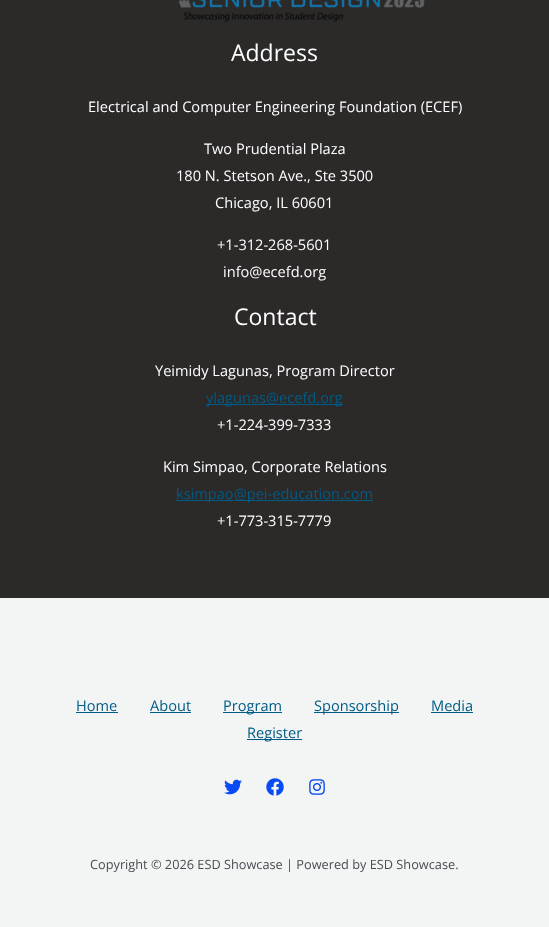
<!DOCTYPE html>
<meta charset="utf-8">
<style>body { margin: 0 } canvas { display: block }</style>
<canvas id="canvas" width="549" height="927"></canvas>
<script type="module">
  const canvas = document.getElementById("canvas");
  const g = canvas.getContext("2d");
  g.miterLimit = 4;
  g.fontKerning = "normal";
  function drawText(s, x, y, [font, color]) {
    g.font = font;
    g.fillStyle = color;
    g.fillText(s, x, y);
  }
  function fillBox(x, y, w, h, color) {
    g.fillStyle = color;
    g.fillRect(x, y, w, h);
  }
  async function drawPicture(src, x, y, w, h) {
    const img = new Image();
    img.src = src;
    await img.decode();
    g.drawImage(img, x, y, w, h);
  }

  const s1 = ["23px Open Sans", "#FFFFFF"];
  const s2 = ["14.6px Open Sans", "#FFFFFF"];
  const s3 = ["14.6px Open Sans", "#005B85"];
  const s4 = ["12.75px Open Sans", "#494B51"];

  fillBox(0, 0, 549, 927, "#F3F5F5");
  fillBox(0, 0, 549, 598, "#2C2929");
  await drawPicture("pic1.png", 178, 0, 247, 22);
  drawText("Address", 231, 61, s1);
  drawText("Electrical and Computer Engineering Foundation (ECEF)", 88, 112, s2);
  drawText("Two Prudential Plaza", 204, 154, s2);
  drawText("180 N. Stetson Ave., Ste 3500", 176, 181, s2);
  drawText("Chicago, IL 60601", 215, 208, s2);
  drawText("+1-312-268-5601", 217, 250, s2);
  drawText("info@ecefd.org", 223, 277, s2);
  drawText("Contact", 234, 325, s1);
  drawText("Yeimidy Lagunas, Program Director", 155, 376, s2);
  fillBox(206, 404, 137, 1, "#005B85");
  drawText("ylagunas@ecefd.org", 206, 403, s3);
  drawText("+1-224-399-7333", 217, 430, s2);
  drawText("Kim Simpao, Corporate Relations", 163, 472, s2);
  fillBox(176, 500, 197, 1, "#005B85");
  drawText("ksimpao@pei-education.com", 176, 499, s3);
  drawText("+1-773-315-7779", 217, 526, s2);
  drawText("Home", 76, 711, s3);
  fillBox(76, 712, 42, 1, "#005B85");
  drawText("About", 150, 711, s3);
  fillBox(150, 712, 41, 1, "#005B85");
  fillBox(223, 712, 59, 1, "#005B85");
  drawText("Program", 223, 711, s3);
  fillBox(314, 712, 85, 1, "#005B85");
  drawText("Sponsorship", 314, 711, s3);
  drawText("Media", 431, 711, s3);
  fillBox(431, 712, 42, 1, "#005B85");
  fillBox(247, 739, 55, 1, "#005B85");
  drawText("Register", 247, 738, s3);
  await drawPicture("pic2.png", 224, 779, 18, 16);
  await drawPicture("pic3.png", 266, 778, 18, 18);
  await drawPicture("pic4.png", 309, 779, 16, 16);
  drawText("Copyright © 2026 ESD Showcase | Powered by ESD Showcase.", 90, 869, s4);
</script>
